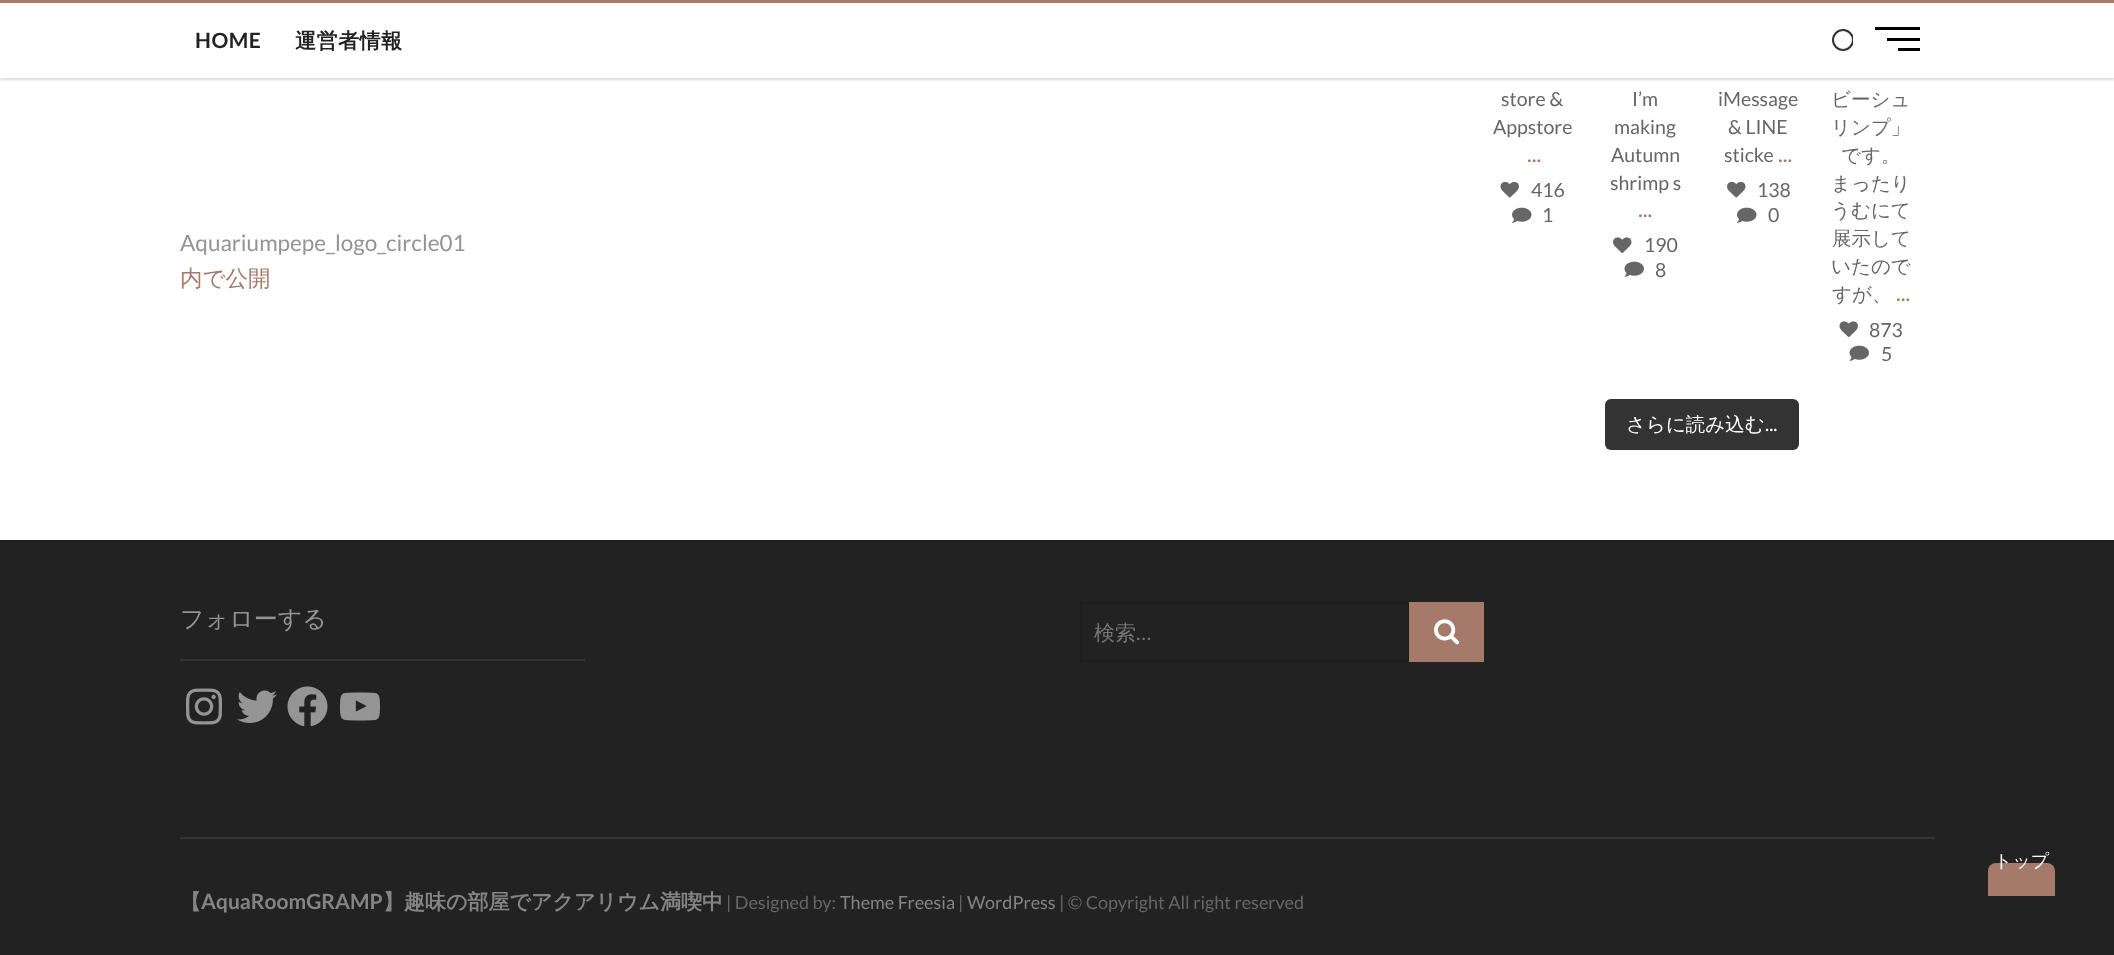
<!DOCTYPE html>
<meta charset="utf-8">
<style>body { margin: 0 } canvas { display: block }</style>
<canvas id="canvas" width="2114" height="955"></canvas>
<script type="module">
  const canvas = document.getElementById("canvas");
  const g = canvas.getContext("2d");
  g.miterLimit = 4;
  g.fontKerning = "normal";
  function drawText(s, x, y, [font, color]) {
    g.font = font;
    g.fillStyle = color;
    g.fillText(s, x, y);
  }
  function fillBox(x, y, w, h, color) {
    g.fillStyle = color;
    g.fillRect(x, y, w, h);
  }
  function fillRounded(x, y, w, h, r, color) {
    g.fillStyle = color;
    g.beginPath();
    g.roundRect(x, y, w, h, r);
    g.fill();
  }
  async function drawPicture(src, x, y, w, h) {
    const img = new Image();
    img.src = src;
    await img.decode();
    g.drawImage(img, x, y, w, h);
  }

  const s1 = ["bold 21px Lato", "#222222"];
  const s2 = ["bold 21px WenQuanYi Zen Hei", "#222222"];
  const s3 = ["22.5px Lato", "#949494"];
  const s4 = ["500 22.5px WenQuanYi Zen Hei", "#A57A6B"];
  const s5 = ["19.5px Lato", "#666666"];
  const s6 = ["22.5px Lato", "#A57A6B"];
  const s7 = ["500 19.5px WenQuanYi Zen Hei", "#666666"];
  const s8 = ["500 19.5px WenQuanYi Zen Hei", "#FFFFFF"];
  const s9 = ["19.5px Lato", "#FFFFFF"];
  const s10 = ["500 24px WenQuanYi Zen Hei", "#949494"];
  const s11 = ["500 21px WenQuanYi Zen Hei", "#757575"];
  const s12 = ["21px Lato", "#757575"];
  const s13 = ["500 18px WenQuanYi Zen Hei", "#FFFFFF"];
  const s14 = ["bold 21px WenQuanYi Zen Hei", "#848484"];
  const s15 = ["bold 21px Lato", "#848484"];
  const s16 = ["18px Lato", "#666666"];
  const s17 = ["18px Lato", "#848484"];

  fillBox(0, 0, 2114, 955, "#FFFFFF");
  g.save();
  g.beginPath();
  g.rect(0, 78, 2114, 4);
  g.clip();
  g.fillStyle = "rgba(0, 0, 0, 0.15)";
  g.filter = "blur(1.5px)";
  g.beginPath();
  g.rect(0, 2, 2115, 78);
  g.fill();
  g.filter = "none";
  g.restore();
  fillBox(0, 0, 2114, 3, "#A57A6B");
  g.letterSpacing = "0.5px";
  drawText("HOME", 195, 48, s1);
  drawText("運営者情報", 295, 48, s2);
  g.save();
  g.beginPath();
  g.rect(1823, 24, 30, 30);
  g.clip();
  g.beginPath();
  g.arc(1843, 40, 10, 0, Math.PI * 2);
  g.strokeStyle = "#333333";
  g.lineWidth = 2;
  g.stroke();
  g.restore();
  fillBox(1887, 38, 33, 3, "#000000");
  fillBox(1875, 27, 45, 3, "#000000");
  fillBox(1898, 48, 22, 3, "#000000");
  g.letterSpacing = "0px";
  drawText("Aquariumpepe_logo_circle01", 180, 251, s3);
  drawText("内で公開", 180, 286, s4);
  drawText("store &", 1501, 106, s5);
  drawText("Appstore", 1493, 134, s5);
  drawText("...", 1527, 162, s6);
  await drawPicture("pic1.png", 1500, 181, 19, 17);
  drawText("416", 1531, 197, s5);
  await drawPicture("pic2.png", 1512, 207, 20, 16);
  drawText("1", 1542, 222, s5);
  drawText("I’m", 1632, 106, s5);
  drawText("making", 1614, 134, s5);
  drawText("Autumn", 1611, 162, s5);
  drawText("shrimp s", 1610, 190, s5);
  drawText("...", 1638, 217, s6);
  await drawPicture("pic3.png", 1613, 237, 19, 17);
  drawText("190", 1644, 252, s5);
  await drawPicture("pic4.png", 1624, 261, 20, 16);
  drawText("8", 1655, 277, s5);
  drawText("iMessage", 1718, 106, s5);
  drawText("& LINE", 1728, 134, s5);
  drawText("sticke", 1724, 162, s5);
  drawText("...", 1778, 162, s6);
  await drawPicture("pic5.png", 1727, 181, 19, 17);
  drawText("138", 1757, 197, s5);
  await drawPicture("pic2.png", 1737, 207, 20, 16);
  drawText("0", 1768, 222, s5);
  drawText("ビーシュ", 1831, 106, s7);
  drawText("リンプ」", 1831, 134, s7);
  drawText("です。", 1841, 162, s7);
  drawText("まったり", 1831, 190, s7);
  drawText("うむにて", 1831, 217, s7);
  drawText("展示して", 1832, 245, s7);
  drawText("いたので", 1831, 273, s7);
  drawText("すが、", 1832, 301, s7);
  drawText("...", 1896, 301, s6);
  await drawPicture("pic6.png", 1839, 321, 19, 17);
  drawText("873", 1869, 337, s5);
  await drawPicture("pic4.png", 1849, 345, 20, 16);
  drawText("5", 1881, 361, s5);
  fillRounded(1605, 399, 194, 51, 6, "#333333");
  drawText("さらに読み込む", 1626, 431, s8);
  drawText("...", 1765, 431, s9);
  fillBox(0, 542, 2114, 413, "#222222");
  fillBox(0, 540, 2114, 2, "#202020");
  fillBox(180, 659, 405, 2, "#333333");
  drawText("フォローする", 180, 627, s10);
  await drawPicture("pic7.png", 186, 688, 36, 37);
  await drawPicture("pic8.png", 237, 690, 40, 33);
  await drawPicture("pic9.png", 287, 686, 41, 41);
  await drawPicture("pic10.png", 340, 692, 40, 29);
  g.strokeStyle = "#1F1F1F";
  g.lineWidth = 2;
  g.strokeRect(1081, 603, 328, 58);
  drawText("検索", 1094, 640, s11);
  drawText("…", 1136, 640, s12);
  fillBox(1409, 602, 75, 60, "#A57A6B");
  await drawPicture("pic11.png", 1434, 619, 25, 26);
  g.beginPath();
  g.roundRect(1988, 863, 67, 33, [8, 8, 0, 0]);
  g.fill();
  drawText("トップ", 1994, 867, s13);
  fillBox(180, 837, 1755, 2, "#333333");
  drawText("【", 180, 909, s14);
  drawText("AquaRoomGRAMP", 201, 909, s15);
  drawText("】趣味の部屋でアクアリウム満喫中", 383, 909, s14);
  drawText("| Designed by:", 726, 909, s16);
  drawText("Theme Freesia", 840, 909, s17);
  drawText("|", 958, 909, s16);
  drawText("WordPress", 967, 909, s17);
  drawText("| © Copyright All right reserved", 1059, 909, s16);
</script>
